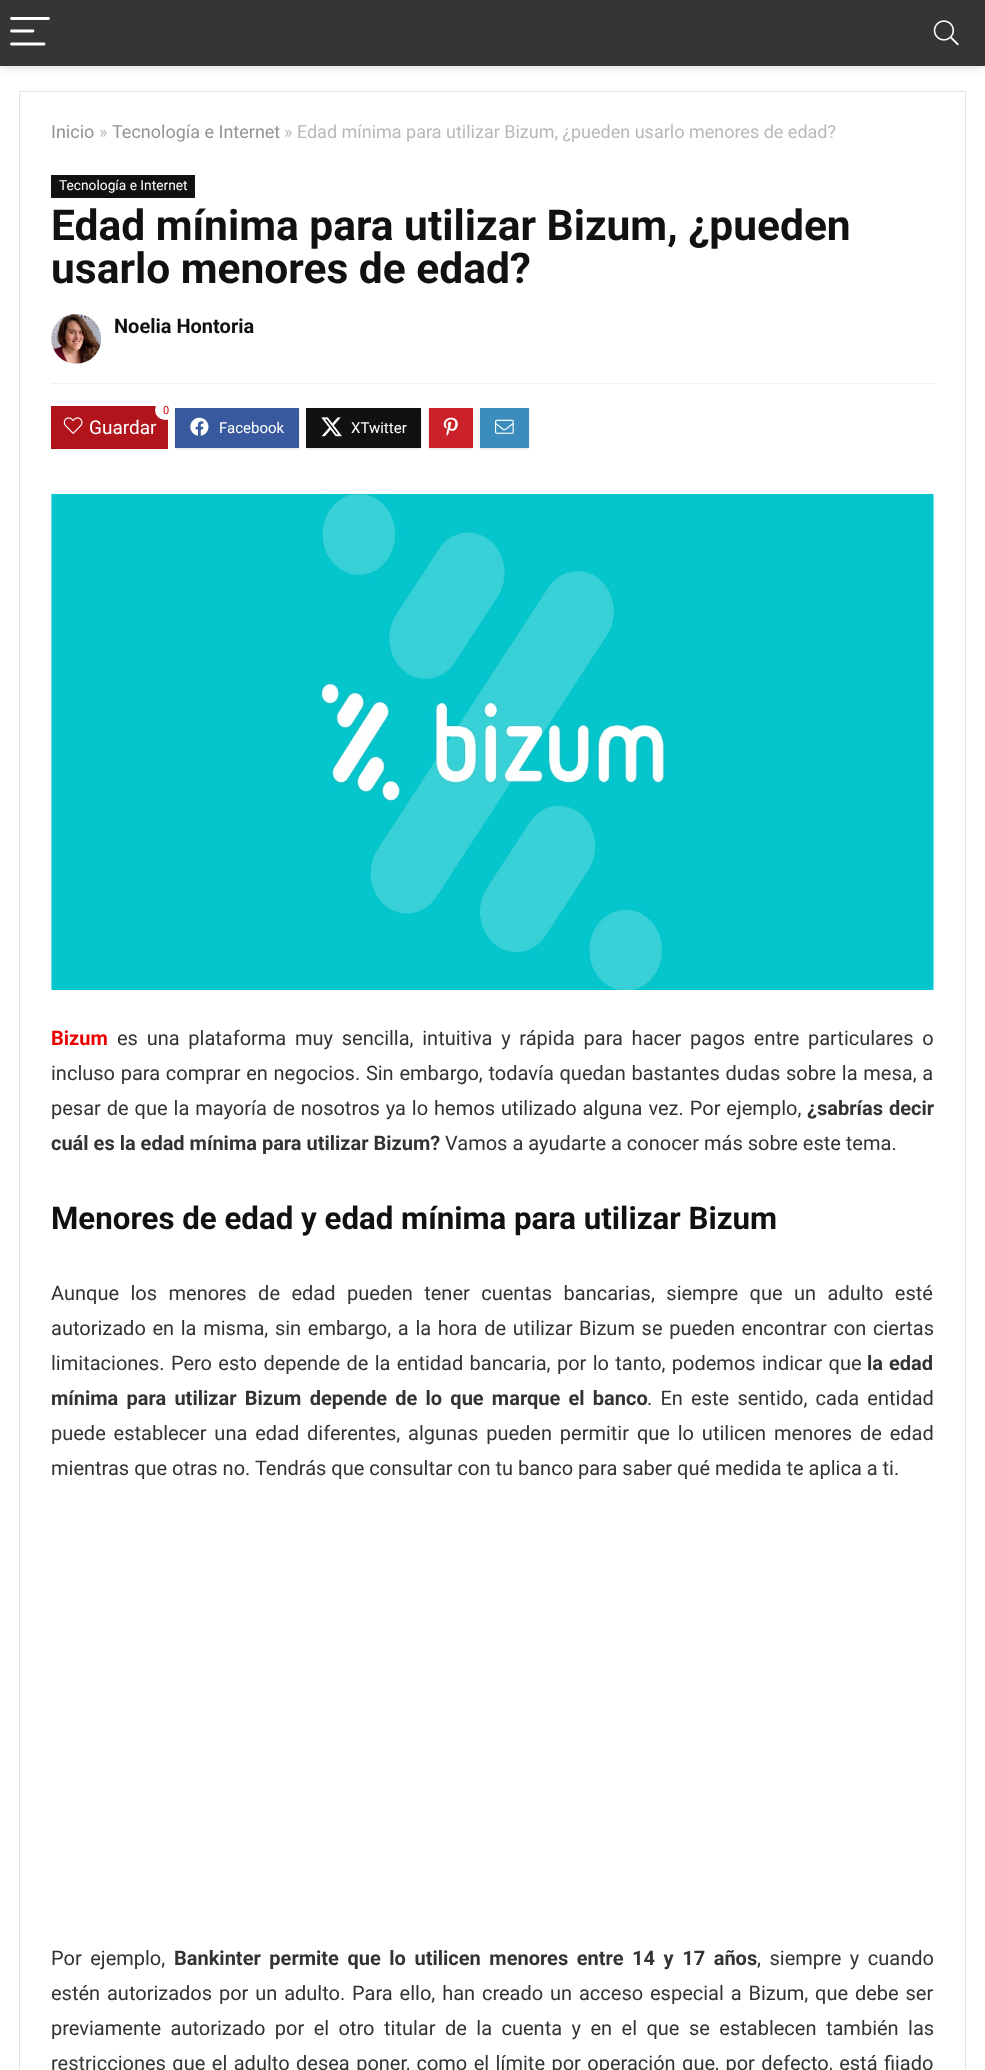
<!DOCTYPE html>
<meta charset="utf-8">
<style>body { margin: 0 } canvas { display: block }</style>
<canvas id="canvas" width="985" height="2070"></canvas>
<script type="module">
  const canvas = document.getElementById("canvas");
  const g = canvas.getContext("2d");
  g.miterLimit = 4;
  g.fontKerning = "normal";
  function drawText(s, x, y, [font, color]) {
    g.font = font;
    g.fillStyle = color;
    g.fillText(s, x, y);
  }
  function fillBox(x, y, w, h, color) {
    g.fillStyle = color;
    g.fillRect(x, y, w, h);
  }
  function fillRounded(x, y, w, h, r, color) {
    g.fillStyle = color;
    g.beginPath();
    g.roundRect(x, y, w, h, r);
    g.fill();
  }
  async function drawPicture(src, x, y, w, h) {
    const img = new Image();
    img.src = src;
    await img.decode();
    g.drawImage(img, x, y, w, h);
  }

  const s1 = ["18px Roboto", "#949494"];
  const s2 = ["18px Roboto", "#B8B8B8"];
  const s3 = ["13.75px Roboto", "#FFFFFF"];
  const s4 = ["bold 42.5px Roboto", "#111111"];
  const s5 = ["bold 20px Roboto", "#111111"];
  const s6 = ["11px Roboto", "#CC0000"];
  const s7 = ["19px Roboto", "#FFFFFF"];
  const s8 = ["15px Roboto", "#FFFFFF"];
  const s9 = ["bold 20px Roboto", "#EE0000"];
  const s10 = ["20px Roboto", "#333333"];
  const s11 = ["bold 20px Roboto", "#333333"];
  const s12 = ["bold 31.25px Roboto", "#111111"];

  fillBox(0, 0, 985, 2070, "#FFFFFF");
  g.strokeStyle = "#F7F7F7";
  g.strokeRect(-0.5, -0.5, 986, 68);
  g.fillStyle = "rgba(0, 0, 0, 0.1)";
  g.filter = "blur(5px)";
  g.beginPath();
  g.rect(0, 1, 985, 67);
  g.fill();
  g.filter = "none";
  fillBox(0, 0, 985, 66, "#353535");
  g.beginPath();
  g.moveTo(11.5, 18.5);
  g.lineTo(48.5, 18.5);
  g.moveTo(11.5, 31);
  g.lineTo(33, 31);
  g.moveTo(11.5, 44);
  g.lineTo(44, 44);
  g.strokeStyle = "#FFFFFF";
  g.lineWidth = 2.8;
  g.lineCap = "round";
  g.stroke();
  await drawPicture("pic1.png", 933, 20, 26, 26);
  g.strokeStyle = "#E3E3E3";
  g.lineWidth = 1;
  g.strokeRect(19.5, 91.5, 946, 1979);
  drawText("Inicio", 51, 138, s1);
  drawText("»", 99, 138, s2);
  drawText("Tecnología e Internet", 112, 138, s1);
  drawText("» Edad mínima para utilizar Bizum, ¿pueden usarlo menores de edad?", 284, 138, s2);
  fillBox(51, 175, 144, 23, "#111111");
  drawText("Tecnología e Internet", 59, 190, s3);
  drawText("Edad mínima para utilizar Bizum, ¿pueden", 51, 240, s4);
  drawText("usarlo menores de edad?", 51, 283, s4);
  fillBox(51, 383, 883, 1, "#F0F0F0");
  await drawPicture("pic2.png", 51, 314, 51, 50);
  drawText("Noelia Hontoria", 114, 333, s5);
  fillBox(51, 406, 117, 43, "#B1141A");
  g.save();
  g.beginPath();
  g.rect(51, 403, 883, 53);
  g.clip();
  fillRounded(155, 400, 21, 20, 10, "#FFFFFF");
  g.restore();
  drawText("0", 163, 414, s6);
  await drawPicture("pic3.png", 63, 417, 20, 17);
  drawText("Guardar", 89, 434, s7);
  g.fillStyle = "#E4E4E4";
  g.filter = "blur(1px)";
  g.beginPath();
  g.rect(175, 409, 124, 40);
  g.fill();
  g.filter = "none";
  fillBox(175, 408, 124, 40, "#39599F");
  await drawPicture("pic4.png", 190, 417, 19, 19);
  drawText("Facebook", 219, 433, s8);
  g.fillStyle = "#E4E4E4";
  g.filter = "blur(1px)";
  g.beginPath();
  g.rect(306, 409, 115, 40);
  g.fill();
  g.filter = "none";
  fillBox(306, 408, 115, 40, "#111111");
  await drawPicture("pic5.png", 321, 417, 21, 20);
  drawText("XTwitter", 351, 433, s8);
  g.fillStyle = "#E4E4E4";
  g.filter = "blur(1px)";
  g.beginPath();
  g.rect(429, 409, 44, 40);
  g.fill();
  g.filter = "none";
  fillBox(429, 408, 44, 40, "#CA212A");
  await drawPicture("pic6.png", 443, 417, 15, 19);
  g.fillStyle = "#E4E4E4";
  g.filter = "blur(1px)";
  g.beginPath();
  g.rect(480, 409, 49, 40);
  g.fill();
  g.filter = "none";
  fillBox(480, 408, 49, 40, "#3B8DBD");
  await drawPicture("pic7.png", 495, 419, 19, 15);
  await drawPicture("pic8.png", 51, 493, 883, 497);
  drawText("Bizum", 51, 1045, s9);
  g.wordSpacing = "3.75px";
  drawText("es una plataforma muy sencilla, intuitiva y rápida para hacer pagos entre particulares o", 117, 1045, s10);
  g.wordSpacing = "0.75px";
  drawText("incluso para comprar en negocios. Sin embargo, todavía quedan bastantes dudas sobre la mesa, a", 51, 1080, s10);
  g.wordSpacing = "1px";
  drawText("pesar de que la mayoría de nosotros ya lo hemos utilizado alguna vez. Por ejemplo,", 51, 1115, s10);
  drawText("¿sabrías decir", 807, 1115, s11);
  g.wordSpacing = "0px";
  drawText("cuál es la edad mínima para utilizar Bizum?", 51, 1150, s11);
  drawText("Vamos a ayudarte a conocer más sobre este tema.", 445, 1150, s10);
  drawText("Menores de edad y edad mínima para utilizar Bizum", 51, 1229, s12);
  g.wordSpacing = "6.5px";
  drawText("Aunque los menores de edad pueden tener cuentas bancarias, siempre que un adulto esté", 51, 1300, s10);
  g.wordSpacing = "1.7px";
  drawText("autorizado en la misma, sin embargo, a la hora de utilizar Bizum se pueden encontrar con ciertas", 51, 1335, s10);
  g.wordSpacing = "1.4px";
  drawText("limitaciones. Pero esto depende de la entidad bancaria, por lo tanto, podemos indicar que", 51, 1370, s10);
  g.wordSpacing = "1px";
  drawText("la edad", 867, 1370, s11);
  g.wordSpacing = "3.25px";
  drawText("mínima para utilizar Bizum depende de lo que marque el banco", 51, 1405, s11);
  drawText(". En este sentido, cada entidad", 647, 1405, s10);
  g.wordSpacing = "2.9px";
  drawText("puede establecer una edad diferentes, algunas pueden permitir que lo utilicen menores de edad", 51, 1440, s10);
  g.wordSpacing = "0px";
  drawText("mientras que otras no. Tendrás que consultar con tu banco para saber qué medida te aplica a ti.", 51, 1475, s10);
  g.wordSpacing = "3.6px";
  drawText("Por ejemplo,", 51, 1965, s10);
  drawText("Bankinter permite que lo utilicen menores entre 14 y 17 años", 174, 1965, s11);
  drawText(", siempre y cuando", 757, 1965, s10);
  g.wordSpacing = "1.9px";
  drawText("estén autorizados por un adulto. Para ello, han creado un acceso especial a Bizum, que debe ser", 51, 2000, s10);
  g.wordSpacing = "4.5px";
  drawText("previamente autorizado por el otro titular de la cuenta y en el que se establecen también las", 51, 2035, s10);
  g.wordSpacing = "1.5px";
  drawText("restricciones que el adulto desea poner, como el límite por operación que, por defecto, está fijado", 51, 2070, s10);
</script>
